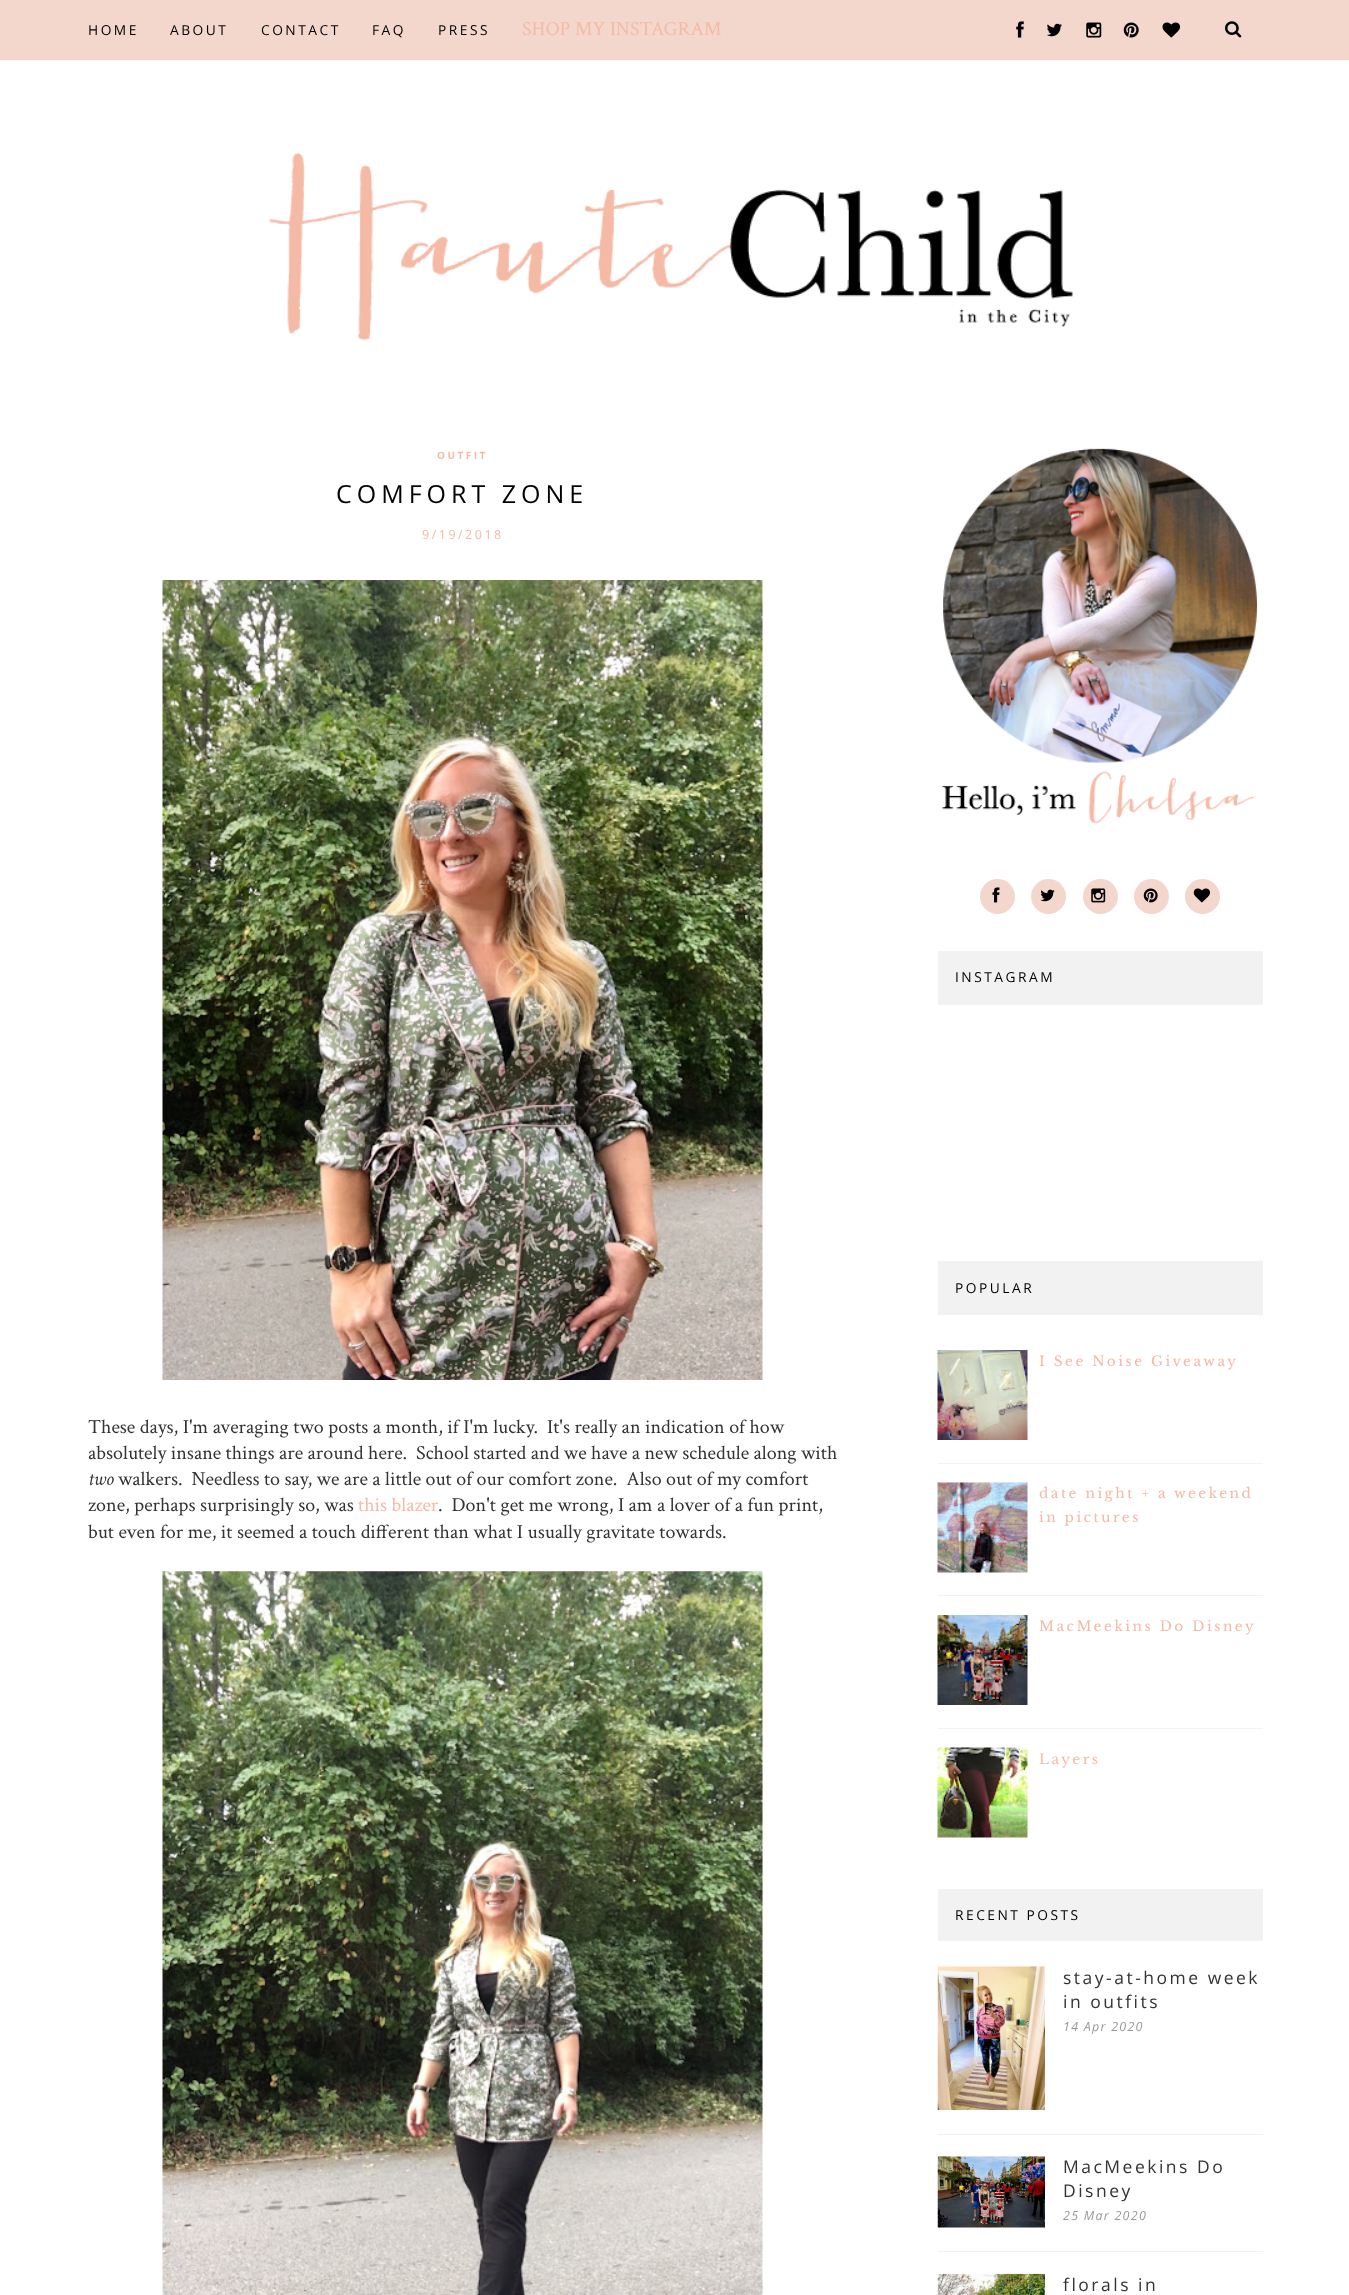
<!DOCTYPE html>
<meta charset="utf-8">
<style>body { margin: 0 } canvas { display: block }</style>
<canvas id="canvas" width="1349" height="2295"></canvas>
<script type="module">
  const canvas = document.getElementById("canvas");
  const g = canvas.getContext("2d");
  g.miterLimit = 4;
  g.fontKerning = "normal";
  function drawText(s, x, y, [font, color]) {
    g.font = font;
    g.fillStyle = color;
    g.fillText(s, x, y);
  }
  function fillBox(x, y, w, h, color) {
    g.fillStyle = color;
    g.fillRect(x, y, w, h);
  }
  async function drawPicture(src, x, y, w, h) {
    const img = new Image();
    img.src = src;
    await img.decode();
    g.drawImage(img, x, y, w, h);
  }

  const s1 = ["13.75px Open Sans", "#000000"];
  const s2 = ["20px Crimson Text", "#F4BAA6"];
  const s3 = ["bold 10px Open Sans", "#F4BAA6"];
  const s4 = ["25px Open Sans", "#000000"];
  const s5 = ["12.5px Open Sans", "#F4BAA6"];
  const s6 = ["20px Crimson Text", "#333333"];
  const s7 = ["italic 20px Crimson Text", "#333333"];
  const s8 = ["13.75px Libre Baskerville", "#F4BAA6"];
  const s9 = ["17.5px Open Sans", "#333333"];
  const s10 = ["italic 12.5px Open Sans", "#999999"];

  fillBox(0, 0, 1349, 2295, "#FFFFFF");
  fillBox(0, 0, 1349, 60, "#F3D7CD");
  g.letterSpacing = "2.5px";
  drawText("HOME", 88, 35, s1);
  drawText("ABOUT", 170, 35, s1);
  drawText("CONTACT", 261, 35, s1);
  drawText("FAQ", 372, 35, s1);
  drawText("PRESS", 438, 35, s1);
  g.letterSpacing = "0px";
  drawText("SHOP MY INSTAGRAM", 522, 35, s2);
  await drawPicture("pic1.png", 1016, 21, 8, 17);
  await drawPicture("pic2.png", 1047, 23, 15, 14);
  await drawPicture("pic3.png", 1086, 22, 16, 16);
  await drawPicture("pic4.png", 1123, 22, 16, 16);
  await drawPicture("pic5.png", 1162, 22, 18, 16);
  await drawPicture("pic6.png", 1225, 21, 17, 17);
  await drawPicture("pic7.png", 268, 152, 805, 189);
  g.letterSpacing = "2.5px";
  drawText("OUTFIT", 437, 459, s3);
  g.letterSpacing = "5px";
  drawText("COMFORT ZONE", 336, 503, s4);
  g.letterSpacing = "2.5px";
  drawText("9/19/2018", 422, 539, s5);
  await drawPicture("pic8.png", 162, 580, 601, 800);
  g.letterSpacing = "0px";
  drawText("These days, I'm averaging two posts a month, if I'm lucky.  It's really an indication of how", 88, 1433, s6);
  drawText("absolutely insane things are around here.  School started and we have a new schedule along with", 88, 1459, s6);
  drawText("two", 88, 1485, s7);
  drawText("walkers.  Needless to say, we are a little out of our comfort zone.  Also out of my comfort", 118, 1485, s6);
  drawText("zone, perhaps surprisingly so, was", 88, 1511, s6);
  drawText("this blazer", 358, 1511, s2);
  drawText(".  Don't get me wrong, I am a lover of a fun print,", 438, 1511, s6);
  drawText("but even for me, it seemed a touch different than what I usually gravitate towards.", 88, 1538, s6);
  await drawPicture("pic9.png", 162, 1571, 601, 724);
  await drawPicture("pic10.png", 941, 448, 316, 376);
  g.fillStyle = "#F3D7CD";
  g.beginPath();
  g.arc(997.5, 896.5, 17.5, 0, Math.PI * 2);
  g.fill();
  await drawPicture("pic11.png", 992, 887, 8, 16);
  g.beginPath();
  g.arc(1048.5, 896.5, 17.5, 0, Math.PI * 2);
  g.fill();
  await drawPicture("pic12.png", 1040, 889, 15, 13);
  g.beginPath();
  g.arc(1100.5, 896.5, 17.5, 0, Math.PI * 2);
  g.fill();
  await drawPicture("pic13.png", 1091, 888, 15, 15);
  g.beginPath();
  g.arc(1151.5, 896.5, 17.5, 0, Math.PI * 2);
  g.fill();
  await drawPicture("pic14.png", 1143, 888, 15, 15);
  g.beginPath();
  g.arc(1202.5, 896.5, 17.5, 0, Math.PI * 2);
  g.fill();
  await drawPicture("pic15.png", 1193, 888, 17, 15);
  fillBox(938, 951, 325, 54, "#F2F2F2");
  g.letterSpacing = "2.5px";
  drawText("INSTAGRAM", 955, 982, s1);
  fillBox(938, 1261, 325, 54, "#F2F2F2");
  drawText("POPULAR", 955, 1293, s1);
  fillBox(938, 1463, 325, 1, "#F2F2F2");
  await drawPicture("pic16.png", 937, 1350, 91, 90);
  drawText("I See Noise Giveaway", 1039, 1366, s8);
  fillBox(938, 1595, 325, 1, "#F2F2F2");
  await drawPicture("pic17.png", 937, 1482, 91, 91);
  drawText("date night + a weekend", 1039, 1498, s8);
  drawText("in pictures", 1039, 1522, s8);
  fillBox(938, 1728, 325, 1, "#F2F2F2");
  await drawPicture("pic18.png", 937, 1615, 91, 90);
  drawText("MacMeekins Do Disney", 1039, 1631, s8);
  await drawPicture("pic19.png", 937, 1747, 91, 91);
  drawText("Layers", 1039, 1764, s8);
  fillBox(938, 1889, 325, 52, "#F2F2F2");
  drawText("RECENT POSTS", 955, 1920, s1);
  fillBox(938, 2134, 325, 1, "#F2F2F2");
  await drawPicture("pic20.png", 937, 1966, 108, 144);
  drawText("stay-at-home week", 1063, 1984, s9);
  drawText("in outfits", 1063, 2008, s9);
  g.letterSpacing = "1.25px";
  drawText("14 Apr 2020", 1063, 2031, s10);
  fillBox(938, 2251, 325, 1, "#F2F2F2");
  await drawPicture("pic21.png", 937, 2156, 108, 72);
  g.letterSpacing = "2.5px";
  drawText("MacMeekins Do", 1063, 2173, s9);
  drawText("Disney", 1063, 2197, s9);
  g.letterSpacing = "1.25px";
  drawText("25 Mar 2020", 1063, 2220, s10);
  await drawPicture("pic22.png", 937, 2273, 108, 22);
  g.letterSpacing = "2.5px";
  drawText("florals in", 1063, 2291, s9);
</script>
